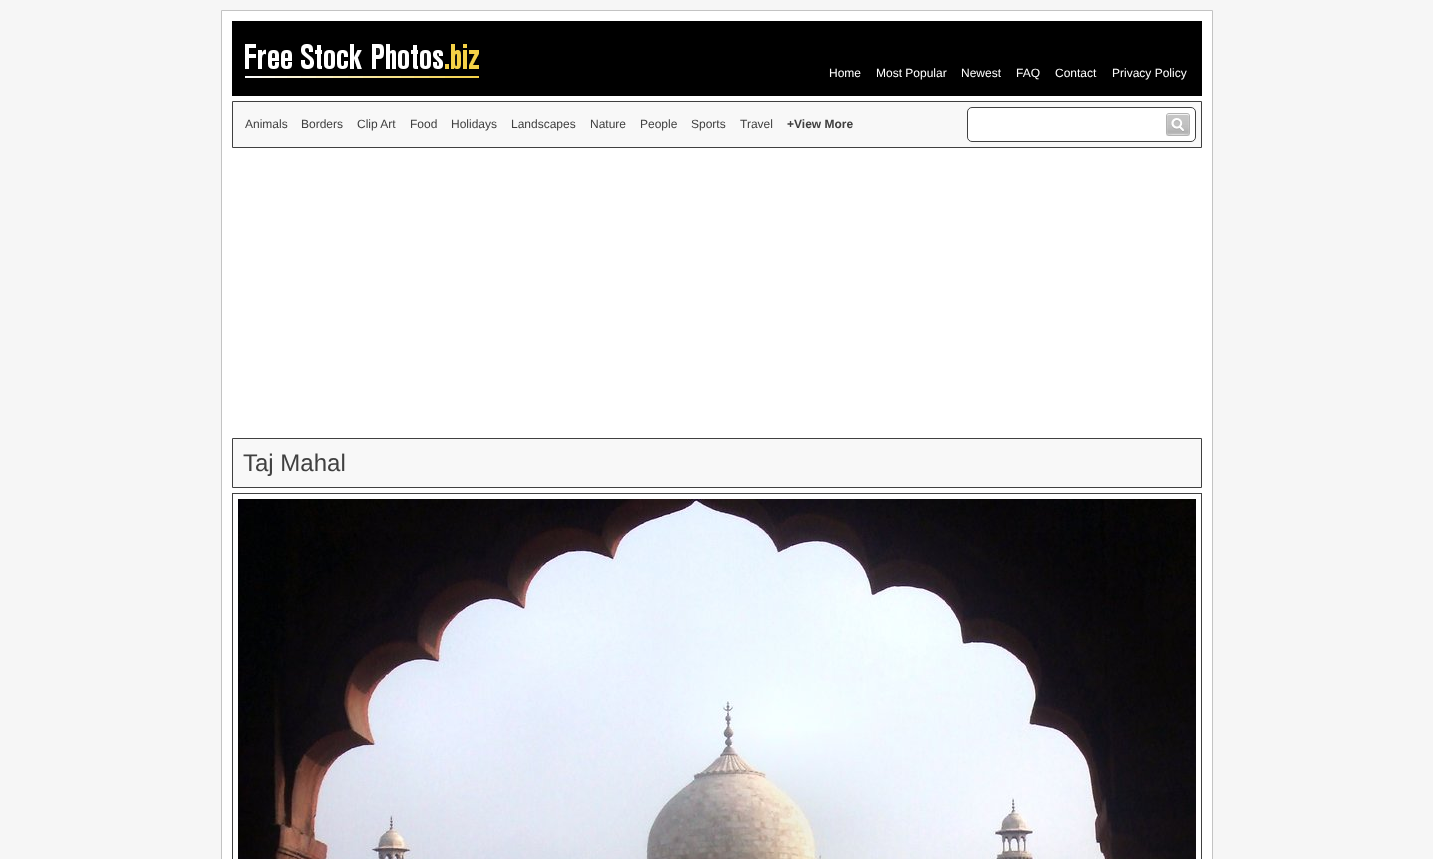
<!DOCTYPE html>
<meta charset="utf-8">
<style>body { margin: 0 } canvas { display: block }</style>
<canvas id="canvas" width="1433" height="859"></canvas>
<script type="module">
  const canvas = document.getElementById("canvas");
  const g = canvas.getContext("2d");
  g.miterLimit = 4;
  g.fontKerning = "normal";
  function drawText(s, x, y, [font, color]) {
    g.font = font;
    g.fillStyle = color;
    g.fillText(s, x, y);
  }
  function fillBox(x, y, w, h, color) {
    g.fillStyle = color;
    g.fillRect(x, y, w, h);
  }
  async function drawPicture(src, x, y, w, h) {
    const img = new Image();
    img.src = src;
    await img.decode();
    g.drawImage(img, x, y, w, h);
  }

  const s1 = ["12px Liberation Sans", "#FFFFFF"];
  const s2 = ["12px Liberation Sans", "#404040"];
  const s3 = ["bold 12px Liberation Sans", "#404040"];
  const s4 = ["24px Liberation Sans", "#404040"];

  fillBox(0, 0, 1433, 859, "#F6F6F6");
  g.fillStyle = "#FFFFFF";
  g.beginPath();
  g.rect(221.5, 10.5, 991, 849);
  g.fill();
  g.strokeStyle = "#C3C3C3";
  g.stroke();
  fillBox(232, 21, 970, 75, "#000000");
  await drawPicture("pic1.png", 245, 44, 234, 34);
  drawText("Home", 829, 77, s1);
  drawText("Most Popular", 876, 77, s1);
  drawText("Newest", 961, 77, s1);
  drawText("FAQ", 1016, 77, s1);
  drawText("Contact", 1055, 77, s1);
  drawText("Privacy Policy", 1112, 77, s1);
  g.fillStyle = "#F8F8F8";
  g.beginPath();
  g.rect(232.5, 101.5, 969, 46);
  g.fill();
  g.strokeStyle = "#404040";
  g.stroke();
  drawText("Animals", 245, 128, s2);
  drawText("Borders", 301, 128, s2);
  drawText("Clip Art", 357, 128, s2);
  drawText("Food", 410, 128, s2);
  drawText("Holidays", 451, 128, s2);
  drawText("Landscapes", 511, 128, s2);
  drawText("Nature", 590, 128, s2);
  drawText("People", 640, 128, s2);
  drawText("Sports", 691, 128, s2);
  drawText("Travel", 740, 128, s2);
  drawText("+View More", 787, 128, s3);
  g.fillStyle = "#FFFFFF";
  g.beginPath();
  g.roundRect(967.5, 107.5, 228, 34, 4.5);
  g.fill();
  g.stroke();
  await drawPicture("pic2.png", 1166, 113, 24, 23);
  g.fillStyle = "#F8F8F8";
  g.beginPath();
  g.rect(232.5, 438.5, 969, 49);
  g.fill();
  g.stroke();
  drawText("Taj Mahal", 243, 471, s4);
  g.strokeRect(232.5, 493.5, 969, 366);
  await drawPicture("pic3.png", 238, 499, 958, 360);
</script>
